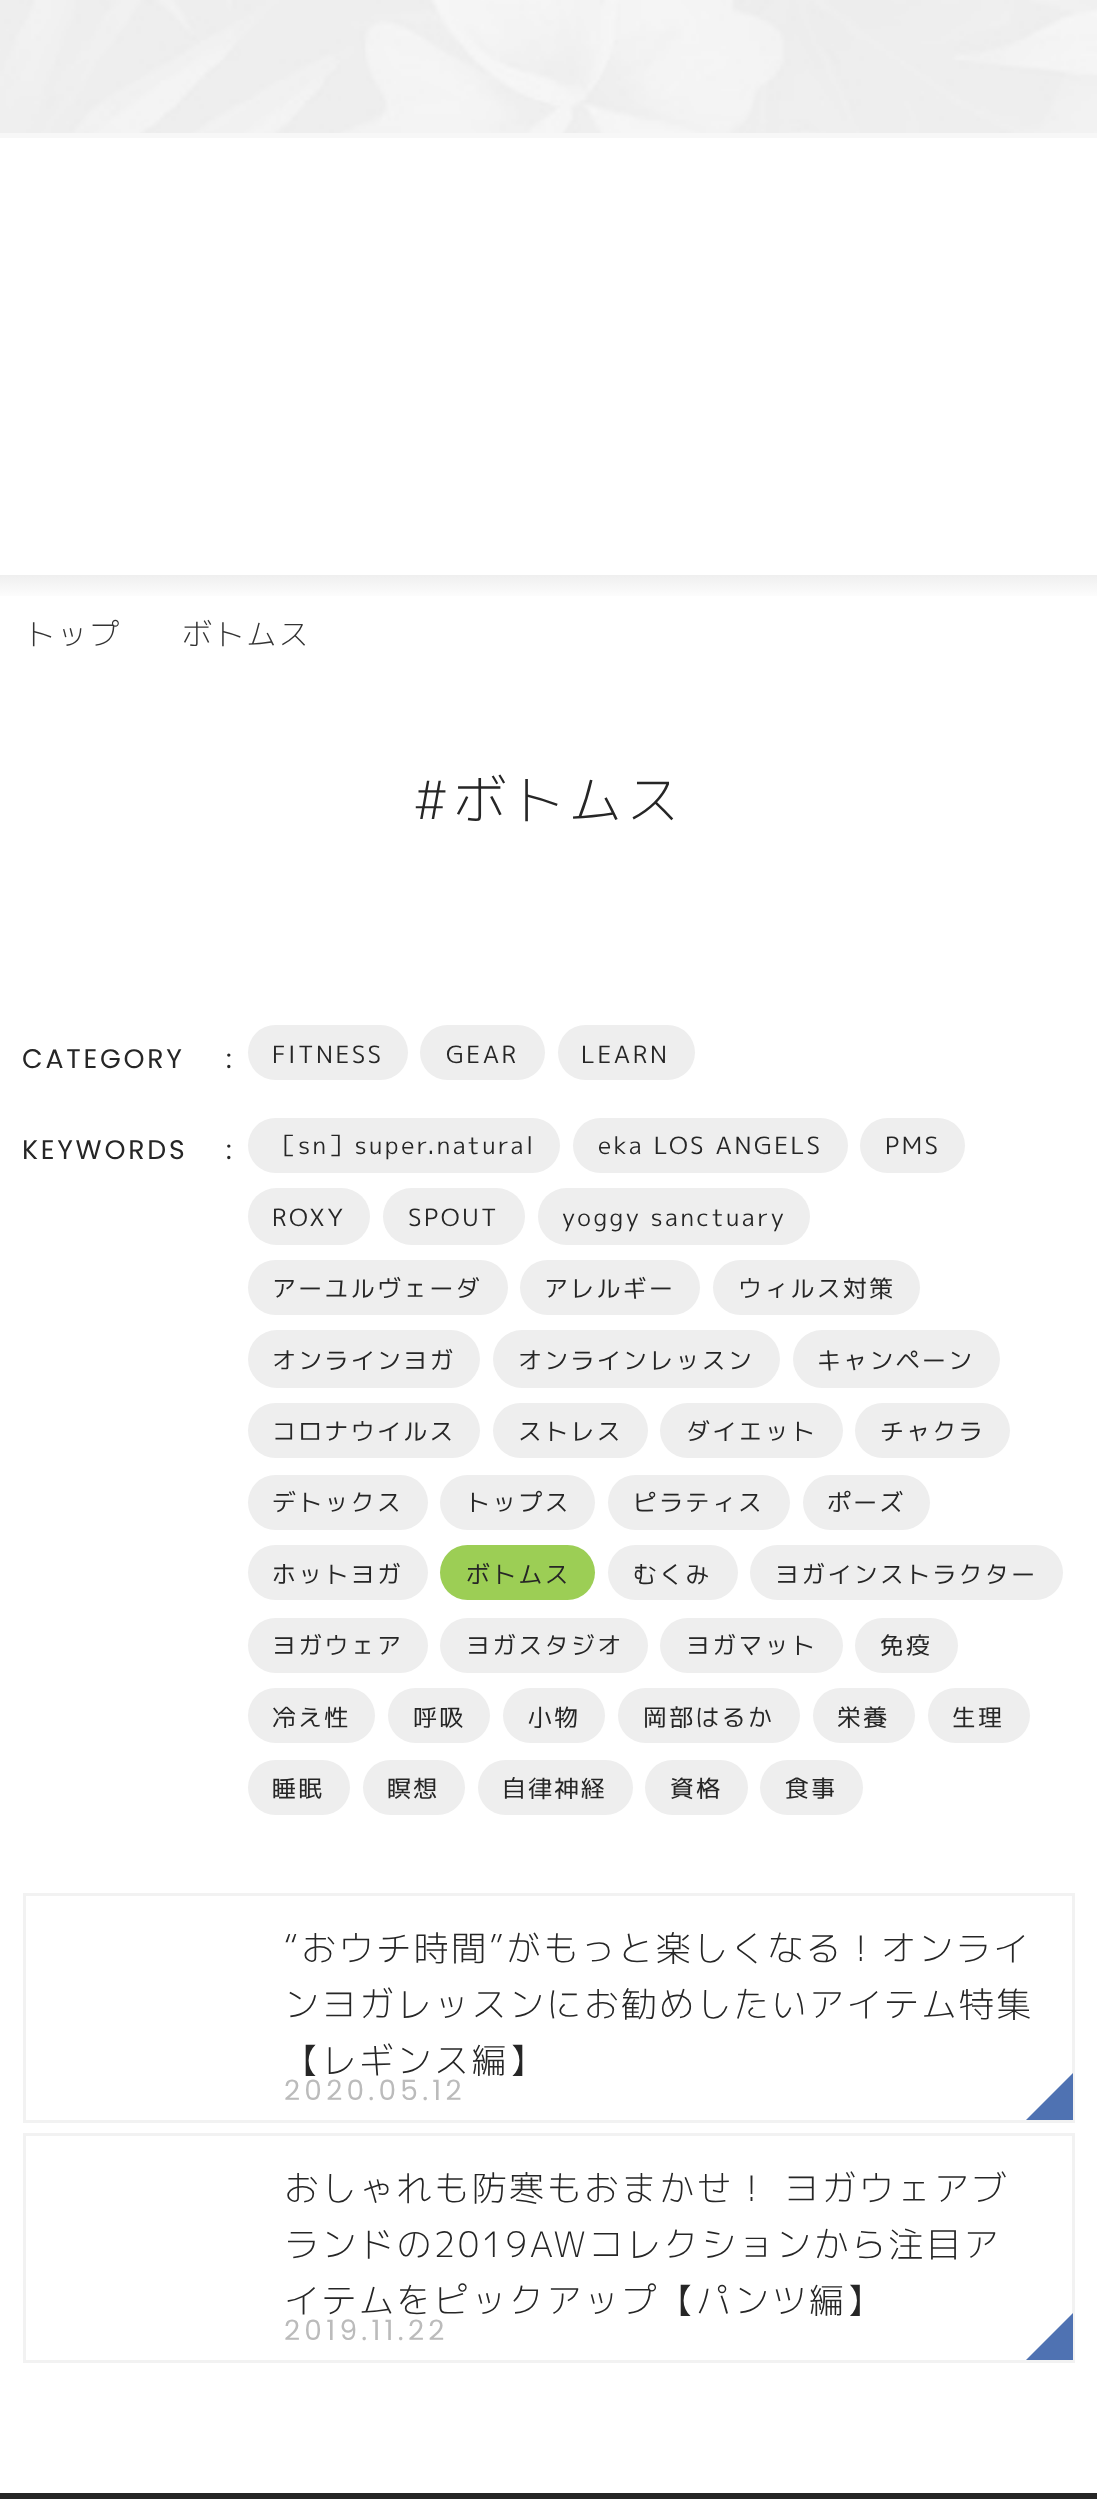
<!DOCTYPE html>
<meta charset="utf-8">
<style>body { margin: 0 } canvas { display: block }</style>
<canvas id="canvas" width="1097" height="2499"></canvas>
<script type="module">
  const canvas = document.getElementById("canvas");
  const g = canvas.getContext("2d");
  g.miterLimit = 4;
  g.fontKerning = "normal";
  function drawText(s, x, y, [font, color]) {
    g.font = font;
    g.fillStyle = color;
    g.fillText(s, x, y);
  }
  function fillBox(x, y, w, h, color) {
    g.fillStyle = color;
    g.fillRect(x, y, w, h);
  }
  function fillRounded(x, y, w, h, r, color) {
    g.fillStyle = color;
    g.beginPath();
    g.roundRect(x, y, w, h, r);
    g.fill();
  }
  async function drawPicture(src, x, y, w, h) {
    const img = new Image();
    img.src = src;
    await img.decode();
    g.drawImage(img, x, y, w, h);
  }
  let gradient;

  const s1 = ["300 29.75px 'M PLUS 1p'", "#333333"];
  const s2 = ["300 52.5px 'M PLUS 1p'", "#262626"];
  const s3 = ["26.75px Poppins", "#262626"];
  const s4 = ["23.75px 'M PLUS 1p'", "#262626"];
  const s5 = ["300 35px 'M PLUS 1p'", "#262626"];
  const s6 = ["28px Poppins", "#BBBBBB"];

  fillBox(0, 0, 1097, 2499, "#FFFFFF");
  await drawPicture("pic1.png", 0, 0, 1097, 133);
  fillBox(0, 133, 1097, 5, "#F7F7F7");
  gradient = g.createLinearGradient(549, 575, 549, 600);
  gradient.addColorStop(0, "#EFEFEF");
  gradient.addColorStop(1, "#FFFFFF");
  g.fillStyle = gradient;
  g.fillRect(0, 575, 1097, 21);
  g.letterSpacing = "2.5px";
  drawText("トップ", 25, 645, s1);
  drawText("ボトムス", 182, 645, s1);
  g.letterSpacing = "5.25px";
  drawText("#ボトムス", 413, 819, s2);
  g.letterSpacing = "2.75px";
  drawText("CATEGORY", 22, 1068, s3);
  drawText(":", 226, 1068, s3);
  fillRounded(248, 1025, 160, 55, 27.5, "#EEEEEE");
  g.letterSpacing = "2.5px";
  drawText("FITNESS", 272, 1063, s4);
  fillRounded(420, 1025, 125, 55, 27.5, "#EEEEEE");
  drawText("GEAR", 446, 1063, s4);
  fillRounded(558, 1025, 137, 55, 27.5, "#EEEEEE");
  drawText("LEARN", 581, 1063, s4);
  g.letterSpacing = "2.75px";
  drawText("KEYWORDS", 22, 1159, s3);
  drawText(":", 226, 1159, s3);
  fillRounded(248, 1118, 312, 55, 27.5, "#EEEEEE");
  g.letterSpacing = "2.5px";
  drawText("［sn］super.natural", 272, 1154, s4);
  fillRounded(573, 1118, 275, 55, 27.5, "#EEEEEE");
  drawText("eka LOS ANGELS", 598, 1154, s4);
  fillRounded(860, 1118, 105, 55, 27.5, "#EEEEEE");
  drawText("PMS", 885, 1154, s4);
  fillRounded(248, 1188, 122, 57, 28.5, "#EEEEEE");
  drawText("ROXY", 272, 1226, s4);
  fillRounded(383, 1188, 142, 57, 28.5, "#EEEEEE");
  drawText("SPOUT", 408, 1226, s4);
  fillRounded(538, 1188, 272, 57, 28.5, "#EEEEEE");
  drawText("yoggy sanctuary", 562, 1226, s4);
  fillRounded(248, 1260, 260, 55, 27.5, "#EEEEEE");
  drawText("アーユルヴェーダ", 272, 1297, s4);
  fillRounded(520, 1260, 180, 55, 27.5, "#EEEEEE");
  drawText("アレルギー", 544, 1297, s4);
  fillRounded(713, 1260, 207, 55, 27.5, "#EEEEEE");
  drawText("ウィルス対策", 738, 1297, s4);
  fillRounded(248, 1330, 232, 58, 29, "#EEEEEE");
  drawText("オンラインヨガ", 272, 1369, s4);
  fillRounded(493, 1330, 287, 58, 29, "#EEEEEE");
  drawText("オンラインレッスン", 518, 1369, s4);
  fillRounded(793, 1330, 207, 58, 29, "#EEEEEE");
  drawText("キャンペーン", 817, 1369, s4);
  fillRounded(248, 1403, 232, 55, 27.5, "#EEEEEE");
  drawText("コロナウイルス", 272, 1440, s4);
  fillRounded(493, 1403, 155, 55, 27.5, "#EEEEEE");
  drawText("ストレス", 518, 1440, s4);
  fillRounded(660, 1403, 183, 55, 27.5, "#EEEEEE");
  drawText("ダイエット", 686, 1440, s4);
  fillRounded(855, 1403, 155, 55, 27.5, "#EEEEEE");
  drawText("チャクラ", 880, 1440, s4);
  fillRounded(248, 1475, 180, 55, 27.5, "#EEEEEE");
  drawText("デトックス", 272, 1511, s4);
  fillRounded(440, 1475, 155, 55, 27.5, "#EEEEEE");
  drawText("トップス", 466, 1511, s4);
  fillRounded(608, 1475, 182, 55, 27.5, "#EEEEEE");
  drawText("ピラティス", 633, 1511, s4);
  fillRounded(803, 1475, 127, 55, 27.5, "#EEEEEE");
  drawText("ポーズ", 827, 1511, s4);
  fillRounded(248, 1545, 180, 55, 27.5, "#EEEEEE");
  drawText("ホットヨガ", 272, 1583, s4);
  fillRounded(440, 1545, 155, 55, 27.5, "#9CCE55");
  drawText("ボトムス", 466, 1583, s4);
  fillRounded(608, 1545, 130, 55, 27.5, "#EEEEEE");
  drawText("むくみ", 633, 1583, s4);
  fillRounded(750, 1545, 313, 55, 27.5, "#EEEEEE");
  drawText("ヨガインストラクター", 775, 1583, s4);
  fillRounded(248, 1618, 180, 55, 27.5, "#EEEEEE");
  drawText("ヨガウェア", 272, 1654, s4);
  fillRounded(440, 1618, 208, 55, 27.5, "#EEEEEE");
  drawText("ヨガスタジオ", 466, 1654, s4);
  fillRounded(660, 1618, 183, 55, 27.5, "#EEEEEE");
  drawText("ヨガマット", 686, 1654, s4);
  fillRounded(855, 1618, 103, 55, 27.5, "#EEEEEE");
  drawText("免疫", 880, 1654, s4);
  fillRounded(248, 1688, 127, 55, 27.5, "#EEEEEE");
  drawText("冷え性", 272, 1726, s4);
  fillRounded(388, 1688, 102, 55, 27.5, "#EEEEEE");
  drawText("呼吸", 413, 1726, s4);
  fillRounded(503, 1688, 102, 55, 27.5, "#EEEEEE");
  drawText("小物", 528, 1726, s4);
  fillRounded(618, 1688, 182, 55, 27.5, "#EEEEEE");
  drawText("岡部はるか", 643, 1726, s4);
  fillRounded(813, 1688, 102, 55, 27.5, "#EEEEEE");
  drawText("栄養", 837, 1726, s4);
  fillRounded(928, 1688, 102, 55, 27.5, "#EEEEEE");
  drawText("生理", 952, 1726, s4);
  fillRounded(248, 1760, 102, 55, 27.5, "#EEEEEE");
  drawText("睡眠", 272, 1797, s4);
  fillRounded(363, 1760, 102, 55, 27.5, "#EEEEEE");
  drawText("瞑想", 387, 1797, s4);
  fillRounded(478, 1760, 155, 55, 27.5, "#EEEEEE");
  drawText("自律神経", 502, 1797, s4);
  fillRounded(645, 1760, 103, 55, 27.5, "#EEEEEE");
  drawText("資格", 670, 1797, s4);
  fillRounded(760, 1760, 103, 55, 27.5, "#EEEEEE");
  drawText("食事", 785, 1797, s4);
  g.strokeStyle = "#F2F2F2";
  g.lineWidth = 3;
  g.strokeRect(24.5, 1894.5, 1049, 227);
  drawText("“おウチ時間”がもっと楽しくなる！オンライ", 284, 1961, s5);
  drawText("ンヨガレッスンにお勧めしたいアイテム特集", 284, 2017, s5);
  drawText("【レギンス編】", 284, 2073, s5);
  g.letterSpacing = "4.25px";
  drawText("2020.05.12", 284, 2100, s6);
  g.save();
  g.beginPath();
  g.rect(248, 1895, 825, 225);
  g.clip();
  g.fillStyle = "#4F72B2";
  g.beginPath();
  g.moveTo(971, 2175);
  g.lineTo(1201, 1945);
  g.lineTo(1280, 2025);
  g.lineTo(1050, 2254);
  g.closePath();
  g.fill();
  g.restore();
  g.strokeRect(24.5, 2134.5, 1049, 227);
  g.letterSpacing = "2.5px";
  drawText("おしゃれも防寒もおまかせ！ ヨガウェアブ", 284, 2201, s5);
  drawText("ランドの2019AWコレクションから注目ア", 284, 2257, s5);
  drawText("イテムをピックアップ【パンツ編】", 284, 2313, s5);
  g.letterSpacing = "4.25px";
  drawText("2019.11.22", 284, 2340, s6);
  g.save();
  g.beginPath();
  g.rect(248, 2135, 825, 225);
  g.clip();
  g.fillStyle = "#4F72B2";
  g.beginPath();
  g.moveTo(971, 2415);
  g.lineTo(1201, 2185);
  g.lineTo(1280, 2265);
  g.lineTo(1050, 2494);
  g.closePath();
  g.fill();
  g.restore();
  fillBox(0, 2493, 1097, 6, "#262626");
</script>
